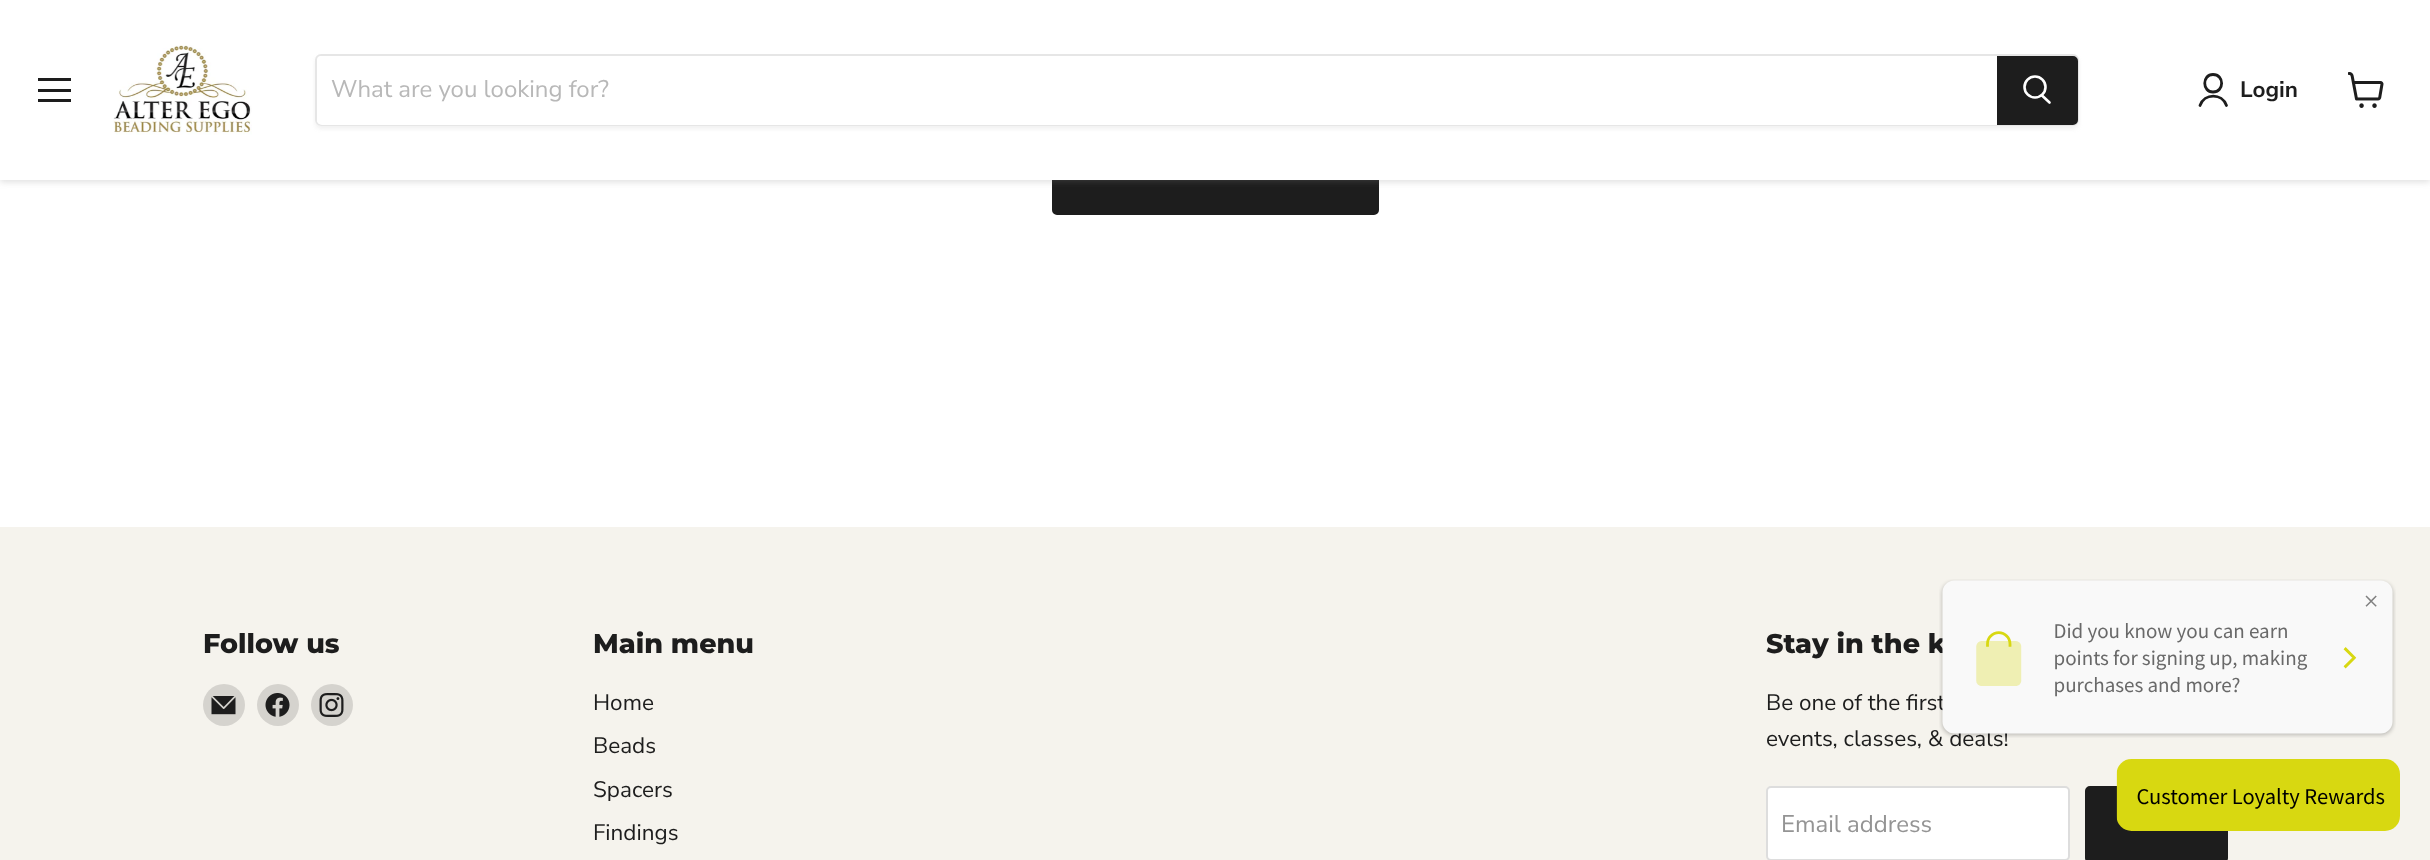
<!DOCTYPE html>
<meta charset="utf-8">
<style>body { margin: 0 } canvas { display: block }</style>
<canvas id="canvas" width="2430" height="860"></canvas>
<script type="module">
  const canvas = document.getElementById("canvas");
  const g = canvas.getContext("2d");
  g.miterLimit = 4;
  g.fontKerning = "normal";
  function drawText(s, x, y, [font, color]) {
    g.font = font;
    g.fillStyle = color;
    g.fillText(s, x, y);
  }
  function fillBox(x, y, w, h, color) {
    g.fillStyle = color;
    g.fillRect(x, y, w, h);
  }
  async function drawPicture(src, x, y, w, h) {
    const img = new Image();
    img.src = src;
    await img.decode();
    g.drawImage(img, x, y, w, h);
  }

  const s1 = ["24px Nunito Sans", "#B8B8B8"];
  const s2 = ["bold 22.5px Nunito Sans", "#1D1D1D"];
  const s3 = ["800 27px Montserrat", "#1D1D1D"];
  const s4 = ["22.5px Nunito Sans", "#1D1D1D"];
  const s5 = ["24px Nunito Sans", "#949494"];

  fillBox(0, 0, 2430, 860, "#FFFFFF");
  g.fillStyle = "#1D1D1D";
  g.beginPath();
  g.roundRect(1053, 139, 325, 75, 4);
  g.fill();
  g.strokeStyle = "#1D1D1D";
  g.lineWidth = 2;
  g.stroke();
  g.fillStyle = "rgba(128, 128, 128, 0.25)";
  g.filter = "blur(3px)";
  g.beginPath();
  g.rect(0, 2, 2430, 180);
  g.fill();
  g.filter = "none";
  fillBox(0, 0, 2430, 180, "#FFFFFF");
  fillBox(38, 78, 33, 3, "#1D1D1D");
  fillBox(38, 89, 33, 3, "#1D1D1D");
  fillBox(38, 99, 33, 3, "#1D1D1D");
  await drawPicture("pic1.png", 113, 45, 139, 90);
  g.save();
  g.beginPath();
  g.moveTo(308, 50);
  g.lineTo(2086, 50);
  g.lineTo(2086, 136);
  g.lineTo(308, 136);
  g.closePath();
  g.moveTo(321, 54);
  g.lineTo(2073, 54);
  g.bezierCurveTo(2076.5, 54, 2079, 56.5, 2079, 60);
  g.lineTo(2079, 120);
  g.bezierCurveTo(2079, 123.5, 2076.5, 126, 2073, 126);
  g.lineTo(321, 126);
  g.bezierCurveTo(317.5, 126, 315, 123.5, 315, 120);
  g.lineTo(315, 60);
  g.bezierCurveTo(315, 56.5, 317.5, 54, 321, 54);
  g.closePath();
  g.clip("evenodd");
  g.fillStyle = "rgba(128, 128, 128, 0.11)";
  g.filter = "blur(2px)";
  g.beginPath();
  g.roundRect(315, 57, 1764, 72, 6);
  g.fill();
  g.filter = "none";
  g.restore();
  g.beginPath();
  g.roundRect(316, 55, 1762, 70, 5);
  g.strokeStyle = "rgba(128, 128, 128, 0.2)";
  g.stroke();
  g.fillStyle = "#FFFFFF";
  g.beginPath();
  g.roundRect(317, 56, 1680, 69, [5, 0, 0, 5]);
  g.fill();
  drawText("What are you looking for?", 331, 97, s1);
  g.fillStyle = "#1D1D1D";
  g.beginPath();
  g.roundRect(1998, 57, 79, 67, [0, 4, 4, 0]);
  g.fill();
  g.strokeStyle = "#1D1D1D";
  g.stroke();
  g.beginPath();
  g.moveTo(2049.5, 102.5);
  g.lineTo(2042, 95.5);
  g.strokeStyle = "#FFFFFF";
  g.lineWidth = 2.6;
  g.lineCap = "round";
  g.stroke();
  g.beginPath();
  g.arc(2035, 87, 10.5, 0, Math.PI * 2);
  g.stroke();
  g.beginPath();
  g.moveTo(2213, 92);
  g.bezierCurveTo(2224.5, 92, 2224.5, 74.5, 2213, 74.5);
  g.bezierCurveTo(2202, 74.5, 2202, 92, 2213, 92);
  g.closePath();
  g.moveTo(2226.5, 105.5);
  g.bezierCurveTo(2222, 93, 2204.5, 93, 2200, 105.5);
  g.strokeStyle = "#1D1D1D";
  g.lineWidth = 2.8;
  g.lineJoin = "round";
  g.stroke();
  drawText("Login", 2240, 97, s2);
  await drawPicture("pic2.png", 2348, 72, 36, 36);
  fillBox(0, 527, 2430, 333, "#F5F3ED");
  drawText("Follow us", 203, 653, s3);
  g.fillStyle = "#D5D3CE";
  g.beginPath();
  g.arc(224, 705, 21, 0, Math.PI * 2);
  g.fill();
  await drawPicture("pic3.png", 211, 696, 25, 19);
  g.beginPath();
  g.arc(278, 705, 21, 0, Math.PI * 2);
  g.fill();
  await drawPicture("pic4.png", 265, 693, 25, 24);
  g.beginPath();
  g.arc(332, 705, 21, 0, Math.PI * 2);
  g.fill();
  await drawPicture("pic5.png", 319, 693, 25, 24);
  drawText("Main menu", 593, 653, s3);
  drawText("Home", 593, 710, s4);
  drawText("Beads", 593, 753, s4);
  drawText("Spacers", 593, 797, s4);
  drawText("Findings", 593, 840, s4);
  drawText("Stay in the k", 1766, 653, s3);
  drawText("Be one of the first", 1766, 710, s4);
  drawText("events, classes, & deals!", 1766, 746, s4);
  g.fillStyle = "#FFFFFF";
  g.beginPath();
  g.roundRect(1767, 787, 302, 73, 4);
  g.fill();
  g.strokeStyle = "#DDDDDD";
  g.lineWidth = 2;
  g.lineJoin = "miter";
  g.stroke();
  drawText("Email address", 1781, 832, s5);
  g.fillStyle = "#1D1D1D";
  g.beginPath();
  g.roundRect(2086, 787, 141, 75, 4);
  g.fill();
  g.strokeStyle = "#1D1D1D";
  g.stroke();
  await drawPicture("pic6.png", 1939, 579, 457, 159);
  await drawPicture("pic7.png", 2116, 759, 284, 72);
</script>
